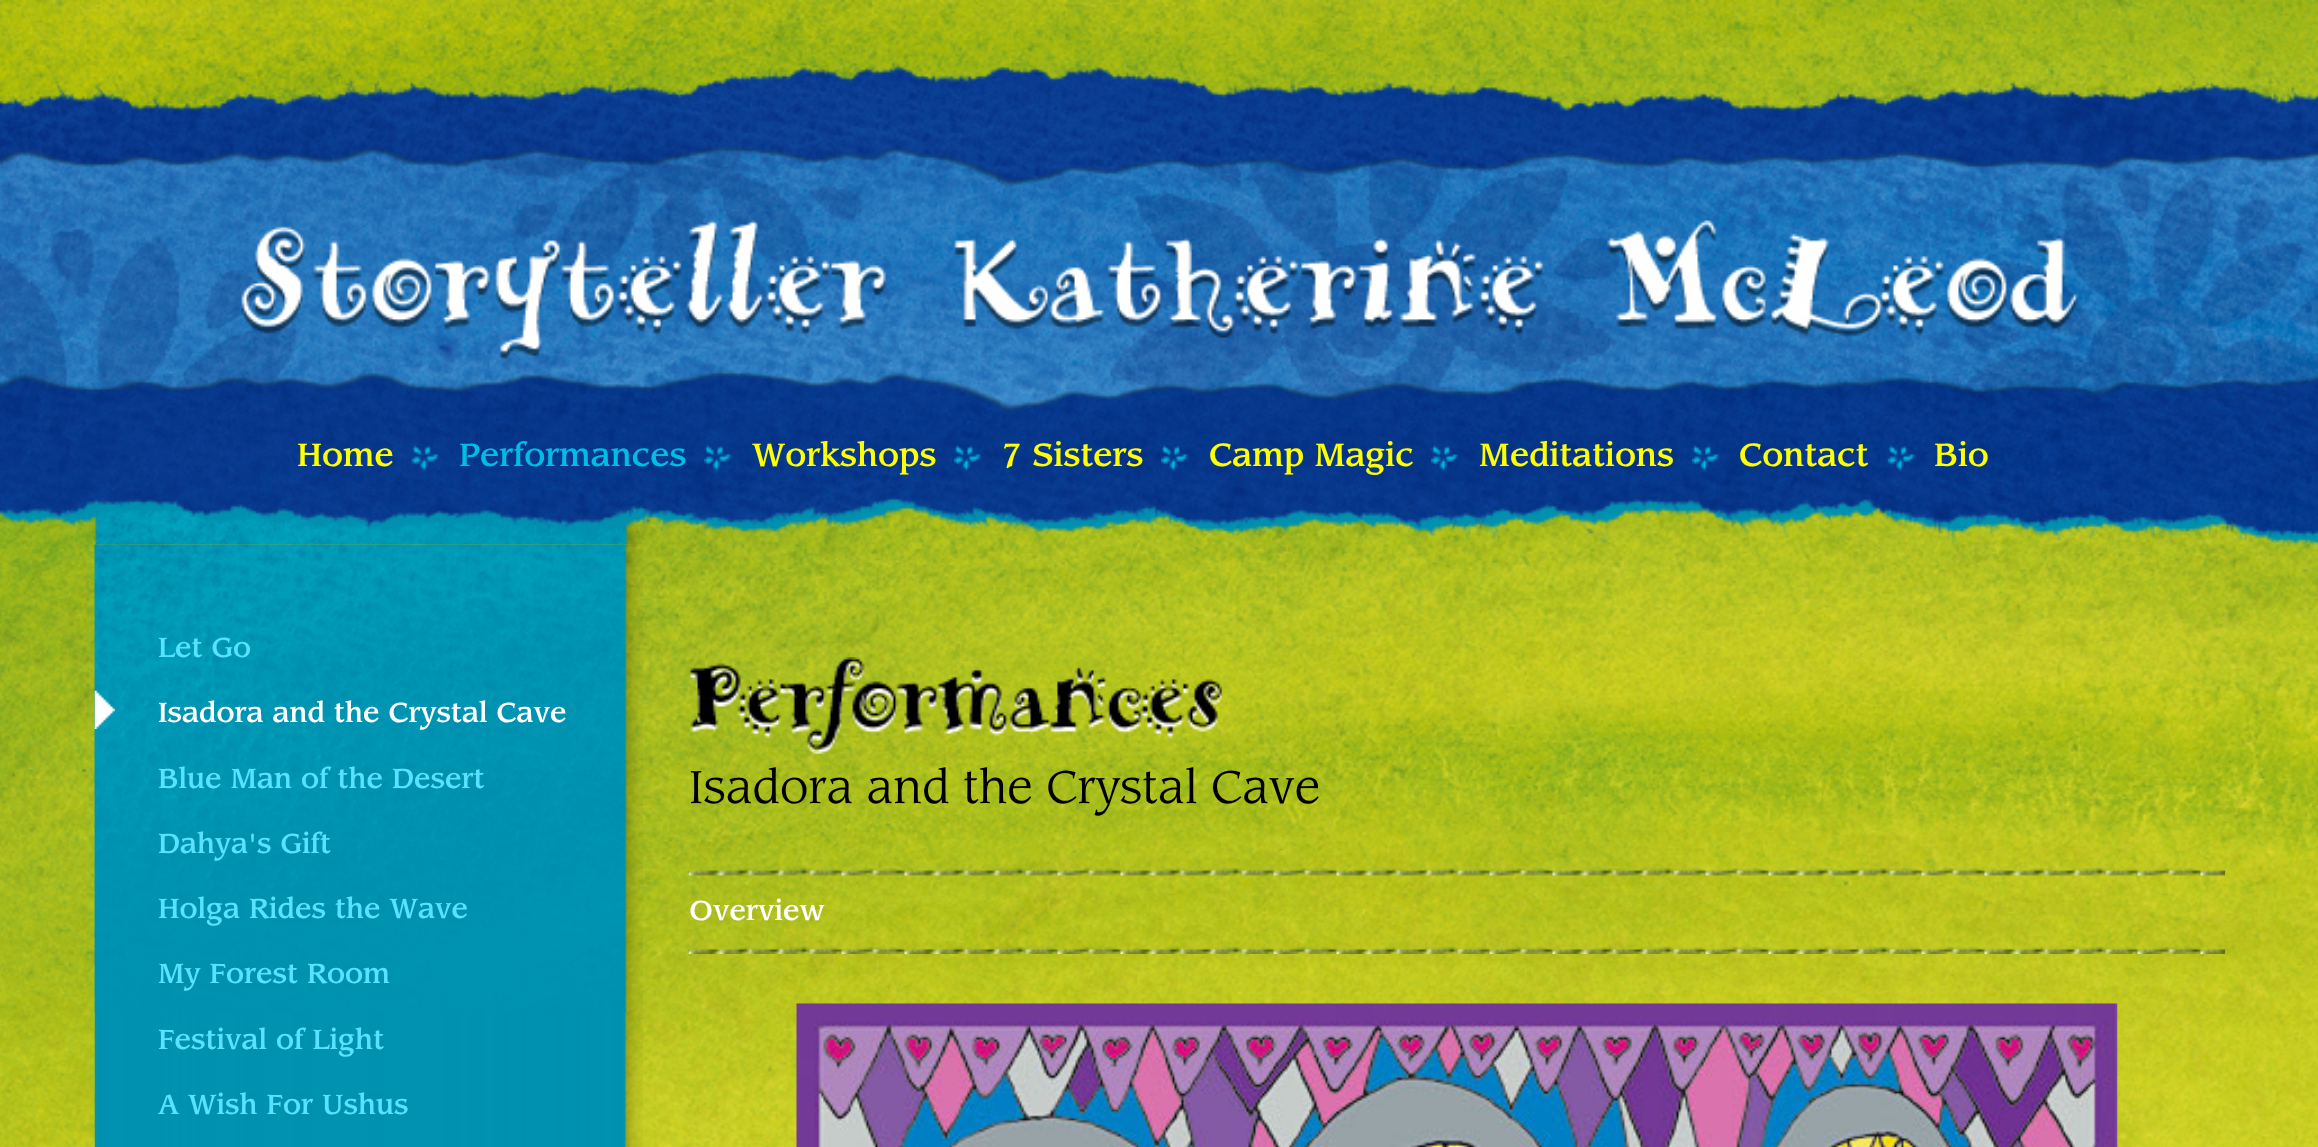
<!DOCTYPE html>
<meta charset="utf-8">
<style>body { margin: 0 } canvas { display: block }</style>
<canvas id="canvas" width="2318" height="1147"></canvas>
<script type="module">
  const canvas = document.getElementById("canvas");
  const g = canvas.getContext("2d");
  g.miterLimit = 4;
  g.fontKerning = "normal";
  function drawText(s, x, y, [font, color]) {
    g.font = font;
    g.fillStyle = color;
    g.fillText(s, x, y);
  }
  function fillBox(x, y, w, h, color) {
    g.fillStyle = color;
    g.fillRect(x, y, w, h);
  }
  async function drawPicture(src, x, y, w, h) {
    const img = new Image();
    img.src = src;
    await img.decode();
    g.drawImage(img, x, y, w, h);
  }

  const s1 = ["500 31.5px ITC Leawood", "#FEFF00"];
  const s2 = ["500 31.5px ITC Leawood", "#00BDE5"];
  const s3 = ["500 27px ITC Leawood", "#58E2FF"];
  const s4 = ["500 27px ITC Leawood", "#FFFFFF"];
  const s5 = ["45px ITC Leawood", "#000000"];

  fillBox(0, 0, 2318, 1147, "#FFFFFF");
  await drawPicture("pic1.png", 0, 0, 2318, 1147);
  drawText("Home", 297, 466, s1);
  await drawPicture("pic2.png", 411, 445, 28, 26);
  drawText("Performances", 459, 466, s2);
  await drawPicture("pic3.png", 704, 445, 28, 26);
  drawText("Workshops", 752, 466, s1);
  await drawPicture("pic4.png", 954, 445, 27, 26);
  drawText("7 Sisters", 1001, 466, s1);
  await drawPicture("pic5.png", 1161, 445, 27, 26);
  drawText("Camp Magic", 1209, 466, s1);
  await drawPicture("pic6.png", 1431, 445, 27, 26);
  drawText("Meditations", 1479, 466, s1);
  await drawPicture("pic7.png", 1692, 445, 27, 26);
  drawText("Contact", 1739, 466, s1);
  await drawPicture("pic8.png", 1887, 445, 28, 26);
  drawText("Bio", 1934, 466, s1);
  await drawPicture("pic9.png", 94, 544, 549, 603);
  await drawPicture("pic10.png", 94, 544, 533, 469);
  drawText("Let Go", 158, 657, s3);
  await drawPicture("pic11.png", 94, 690, 21, 39);
  drawText("Isadora and the Crystal Cave", 158, 722, s4);
  drawText("Blue Man of the Desert", 158, 788, s3);
  drawText("Dahya's Gift", 158, 853, s3);
  drawText("Holga Rides the Wave", 158, 918, s3);
  drawText("My Forest Room", 158, 983, s3);
  drawText("Festival of Light", 158, 1049, s3);
  drawText("A Wish For Ushus", 158, 1114, s3);
  await drawPicture("pic12.png", 689, 657, 533, 97);
  drawText("Isadora and the Crystal Cave", 689, 803, s5);
  await drawPicture("pic13.png", 688, 868, 1538, 86);
  drawText("Overview", 689, 920, s4);
  await drawPicture("pic14.png", 796, 1003, 1322, 144);
</script>
